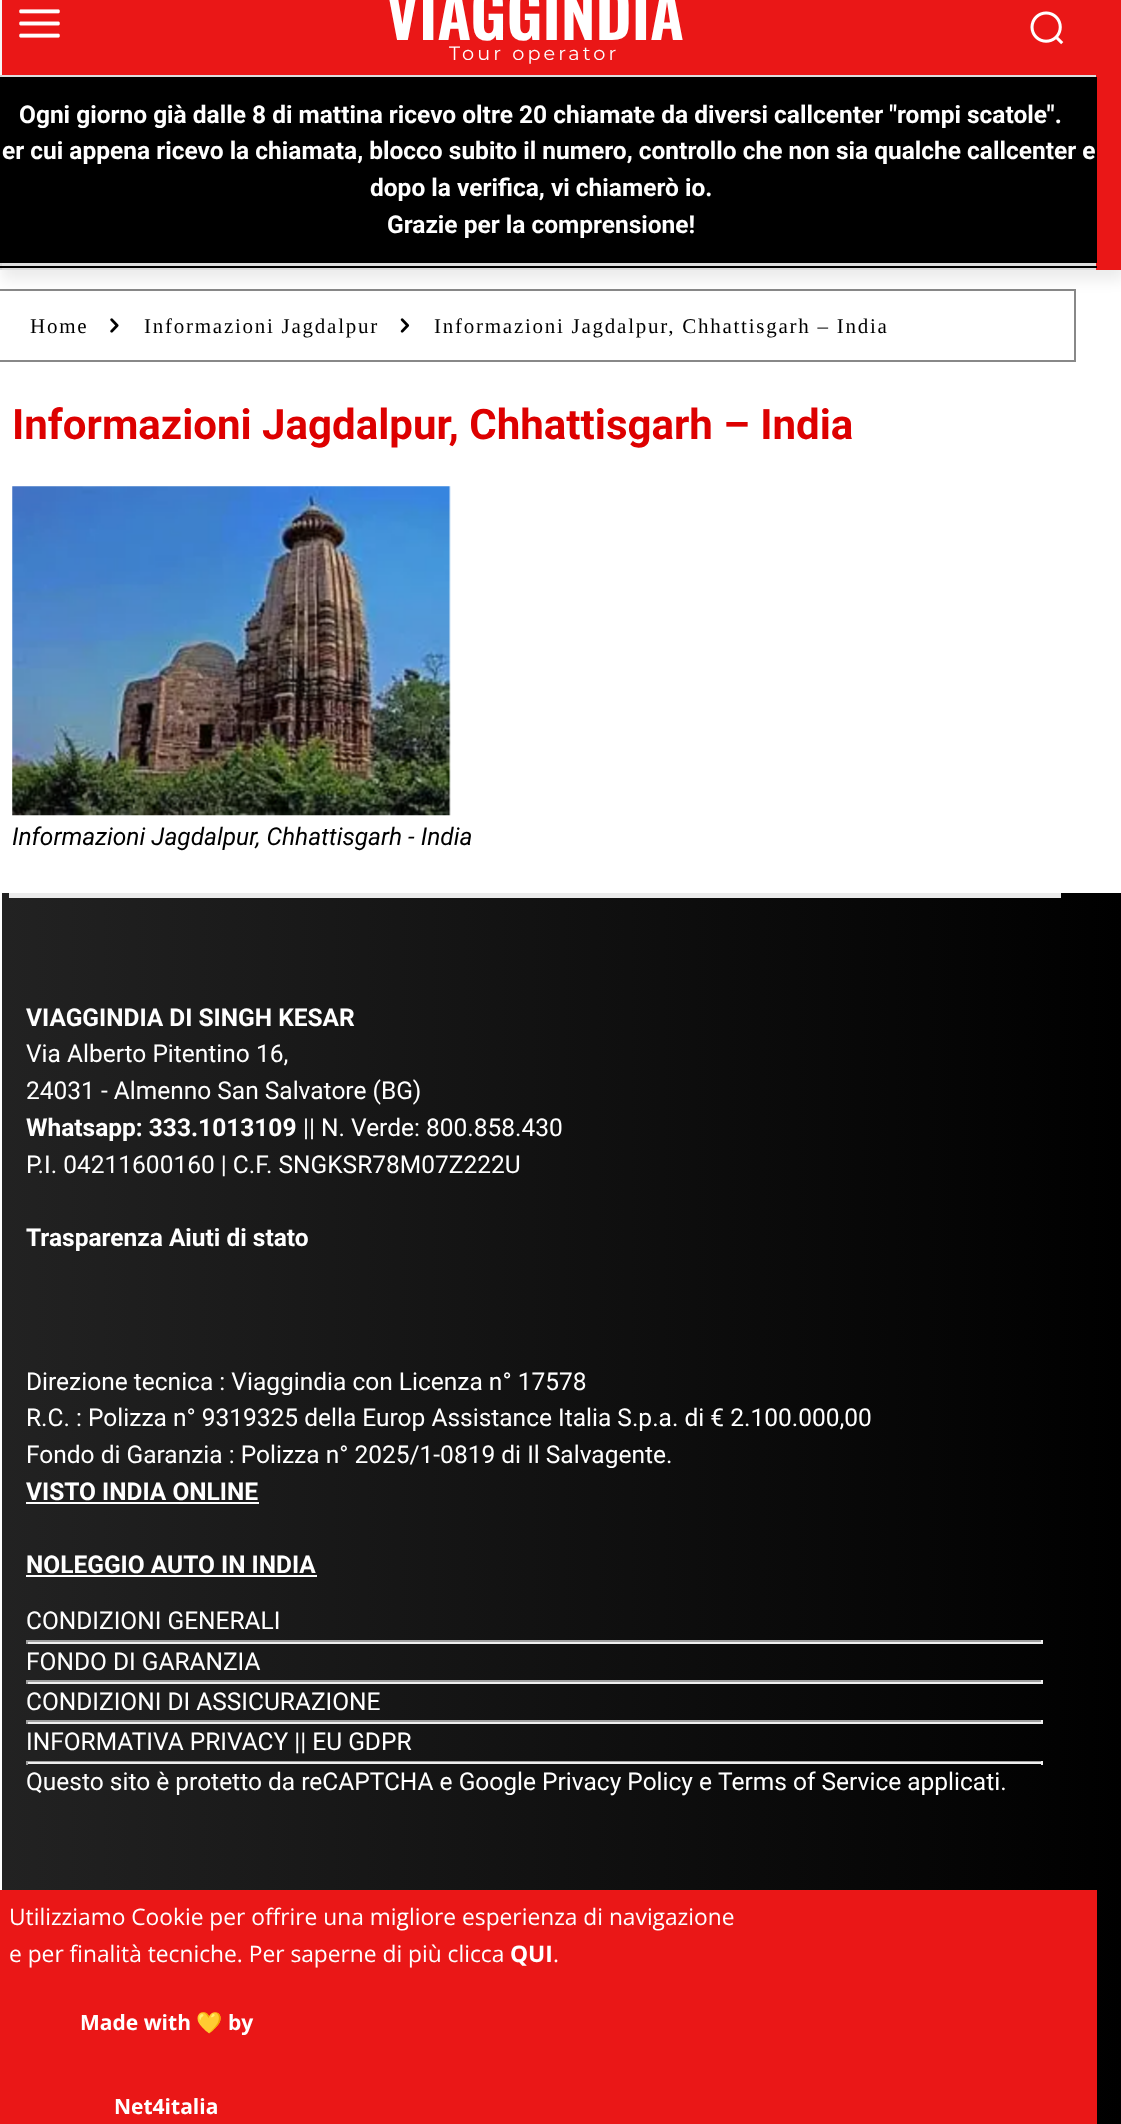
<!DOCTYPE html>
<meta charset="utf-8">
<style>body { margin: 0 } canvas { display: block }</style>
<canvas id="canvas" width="1121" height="2124"></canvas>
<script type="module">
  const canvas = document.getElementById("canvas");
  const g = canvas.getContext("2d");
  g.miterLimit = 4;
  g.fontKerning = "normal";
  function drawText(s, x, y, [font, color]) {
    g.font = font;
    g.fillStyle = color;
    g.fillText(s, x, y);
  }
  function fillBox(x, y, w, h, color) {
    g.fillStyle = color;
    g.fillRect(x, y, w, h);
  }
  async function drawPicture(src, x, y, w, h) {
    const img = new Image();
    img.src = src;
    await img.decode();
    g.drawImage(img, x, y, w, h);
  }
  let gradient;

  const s1 = ["600 63px Oswald", "#FFFFFF"];
  const s2 = ["19.25px Montserrat", "#FFFFFF"];
  const s3 = ["bold 24.5px Roboto", "#FFFFFF"];
  const s4 = ["21px Liberation Serif", "#000000"];
  const s5 = ["bold 42px Roboto", "#DD0000"];
  const s6 = ["italic 24.5px Roboto", "#000000"];
  const s7 = ["24.5px Roboto", "#FFFFFF"];
  const s8 = ["22.75px Open Sans", "#FFFFFF"];
  const s9 = ["bold 22.75px Open Sans", "#FFFFFF"];
  const s10 = ["bold 21px Open Sans", "#FFFFFF"];
  const s11 = ["bold 21px Noto Color Emoji", "#FFFFFF"];

  fillBox(0, 0, 1121, 2124, "#FFFFFF");
  fillBox(2, 0, 1119, 270, "#EA1717");
  await drawPicture("pic1.png", 19, 9, 41, 29);
  await drawPicture("pic2.png", 1030, 11, 34, 34);
  fillBox(0, 75, 1096, 2, "#DDDDDD");
  fillBox(0, 263, 1096, 3, "#DDDDDD");
  fillBox(0, 77, 1097, 186, "#000000");
  fillBox(0, 268, 1096, 2, "#DDDDDD");
  fillBox(0, 266, 1097, 2, "#000000");
  g.strokeStyle = "#888888";
  g.lineWidth = 2;
  g.strokeRect(-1, 290, 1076, 71);
  g.save();
  g.beginPath();
  g.moveTo(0, 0);
  g.lineTo(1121, 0);
  g.lineTo(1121, 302);
  g.lineTo(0, 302);
  g.closePath();
  g.moveTo(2, -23);
  g.lineTo(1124, -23);
  g.lineTo(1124, 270);
  g.lineTo(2, 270);
  g.closePath();
  g.clip("evenodd");
  g.fillStyle = "rgba(0, 0, 0, 0.08)";
  g.filter = "blur(7px)";
  g.beginPath();
  g.rect(2, -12, 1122, 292);
  g.fill();
  g.filter = "none";
  g.restore();
  drawText("VIAGGINDIA", 386, 40, s1);
  g.letterSpacing = "3.1px";
  drawText("Tour operator", 449, 60, s2);
  g.letterSpacing = "0px";
  drawText("Ogni giorno già dalle 8 di mattina ricevo oltre 20 chiamate da diversi callcenter \"rompi scatole\".", 19, 123, s3);
  drawText("er cui appena ricevo la chiamata, blocco subito il numero, controllo che non sia qualche callcenter e", 2, 159, s3);
  drawText("dopo la verifica, vi chiamerò io.", 370, 196, s3);
  drawText("Grazie per la comprensione!", 387, 233, s3);
  g.letterSpacing = "1.75px";
  drawText("Home", 30, 333, s4);
  await drawPicture("pic3.png", 110, 318, 9, 15);
  drawText("Informazioni Jagdalpur", 144, 333, s4);
  await drawPicture("pic4.png", 400, 318, 10, 15);
  drawText("Informazioni Jagdalpur, Chhattisgarh – India", 434, 333, s4);
  g.letterSpacing = "0px";
  drawText("Informazioni Jagdalpur, Chhattisgarh – India", 12, 439, s5);
  await drawPicture("pic5.png", 12, 486, 439, 330);
  drawText("Informazioni Jagdalpur, Chhattisgarh - India", 12, 845, s6);
  gradient = g.createLinearGradient(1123, 1521, 0.9, 1521);
  gradient.addColorStop(0, "#000000");
  gradient.addColorStop(1, "#222222");
  g.fillStyle = gradient;
  g.fillRect(2, 893, 1119, 1231);
  fillBox(9, 893, 1052, 5, "#EBEBEB");
  drawText("VIAGGINDIA DI SINGH KESAR", 26, 1026, s3);
  drawText("Via Alberto Pitentino 16,", 26, 1062, s7);
  drawText("24031 - Almenno San Salvatore (BG)", 26, 1099, s7);
  drawText("Whatsapp: 333.1013109", 26, 1136, s3);
  drawText("|| N. Verde: 800.858.430", 303, 1136, s7);
  drawText("P.I. 04211600160 | C.F. SNGKSR78M07Z222U", 26, 1173, s7);
  drawText("Trasparenza Aiuti di stato", 26, 1246, s3);
  drawText("Direzione tecnica : Viaggindia con Licenza n° 17578", 26, 1390, s7);
  drawText("R.C. : Polizza n° 9319325 della Europ Assistance Italia S.p.a. di € 2.100.000,00", 26, 1426, s7);
  drawText("Fondo di Garanzia : Polizza n° 2025/1-0819 di Il Salvagente.", 26, 1463, s7);
  drawText("VISTO INDIA ONLINE", 26, 1500, s3);
  fillBox(26, 1502, 233, 2, "#FFFFFF");
  drawText("NOLEGGIO AUTO IN INDIA", 26, 1573, s3);
  fillBox(26, 1575, 291, 2, "#FFFFFF");
  drawText("CONDIZIONI GENERALI", 26, 1629, s7);
  fillBox(26, 1640, 1017, 2, "#9F9F9F");
  fillBox(1041, 1640, 2, 4, "#EEEEEE");
  fillBox(26, 1642, 1017, 2, "#EEEEEE");
  fillBox(26, 1640, 2, 4, "#9F9F9F");
  drawText("FONDO DI GARANZIA", 26, 1670, s7);
  fillBox(26, 1680, 1017, 2, "#9F9F9F");
  fillBox(1041, 1680, 2, 4, "#EEEEEE");
  fillBox(26, 1682, 1017, 2, "#EEEEEE");
  fillBox(26, 1680, 2, 4, "#9F9F9F");
  drawText("CONDIZIONI DI ASSICURAZIONE", 26, 1710, s7);
  fillBox(26, 1720, 1017, 2, "#9F9F9F");
  fillBox(1041, 1720, 2, 4, "#EEEEEE");
  fillBox(26, 1722, 1017, 2, "#EEEEEE");
  fillBox(26, 1720, 2, 4, "#9F9F9F");
  drawText("INFORMATIVA PRIVACY || EU GDPR", 26, 1750, s7);
  fillBox(26, 1761, 1017, 1, "#9F9F9F");
  fillBox(1041, 1761, 2, 4, "#EEEEEE");
  fillBox(26, 1762, 1017, 2, "#EEEEEE");
  fillBox(26, 1761, 2, 4, "#9F9F9F");
  drawText("Questo sito è protetto da reCAPTCHA e Google Privacy Policy e", 26, 1790, s7);
  drawText("Terms of Service applicati.", 718, 1790, s7);
  fillBox(0, 1890, 1097, 234, "#EA1717");
  drawText("Utilizziamo Cookie per offrire una migliore esperienza di navigazione", 9, 1925, s8);
  drawText("e per finalità tecniche. Per saperne di più clicca", 9, 1962, s8);
  drawText("QUI", 510, 1962, s9);
  drawText(".", 553, 1962, s8);
  drawText("Made with", 80, 2030, s10);
  drawText("💛", 196, 2030, s11);
  drawText("by", 228, 2030, s10);
  drawText("Net4italia", 114, 2114, s10);
</script>
